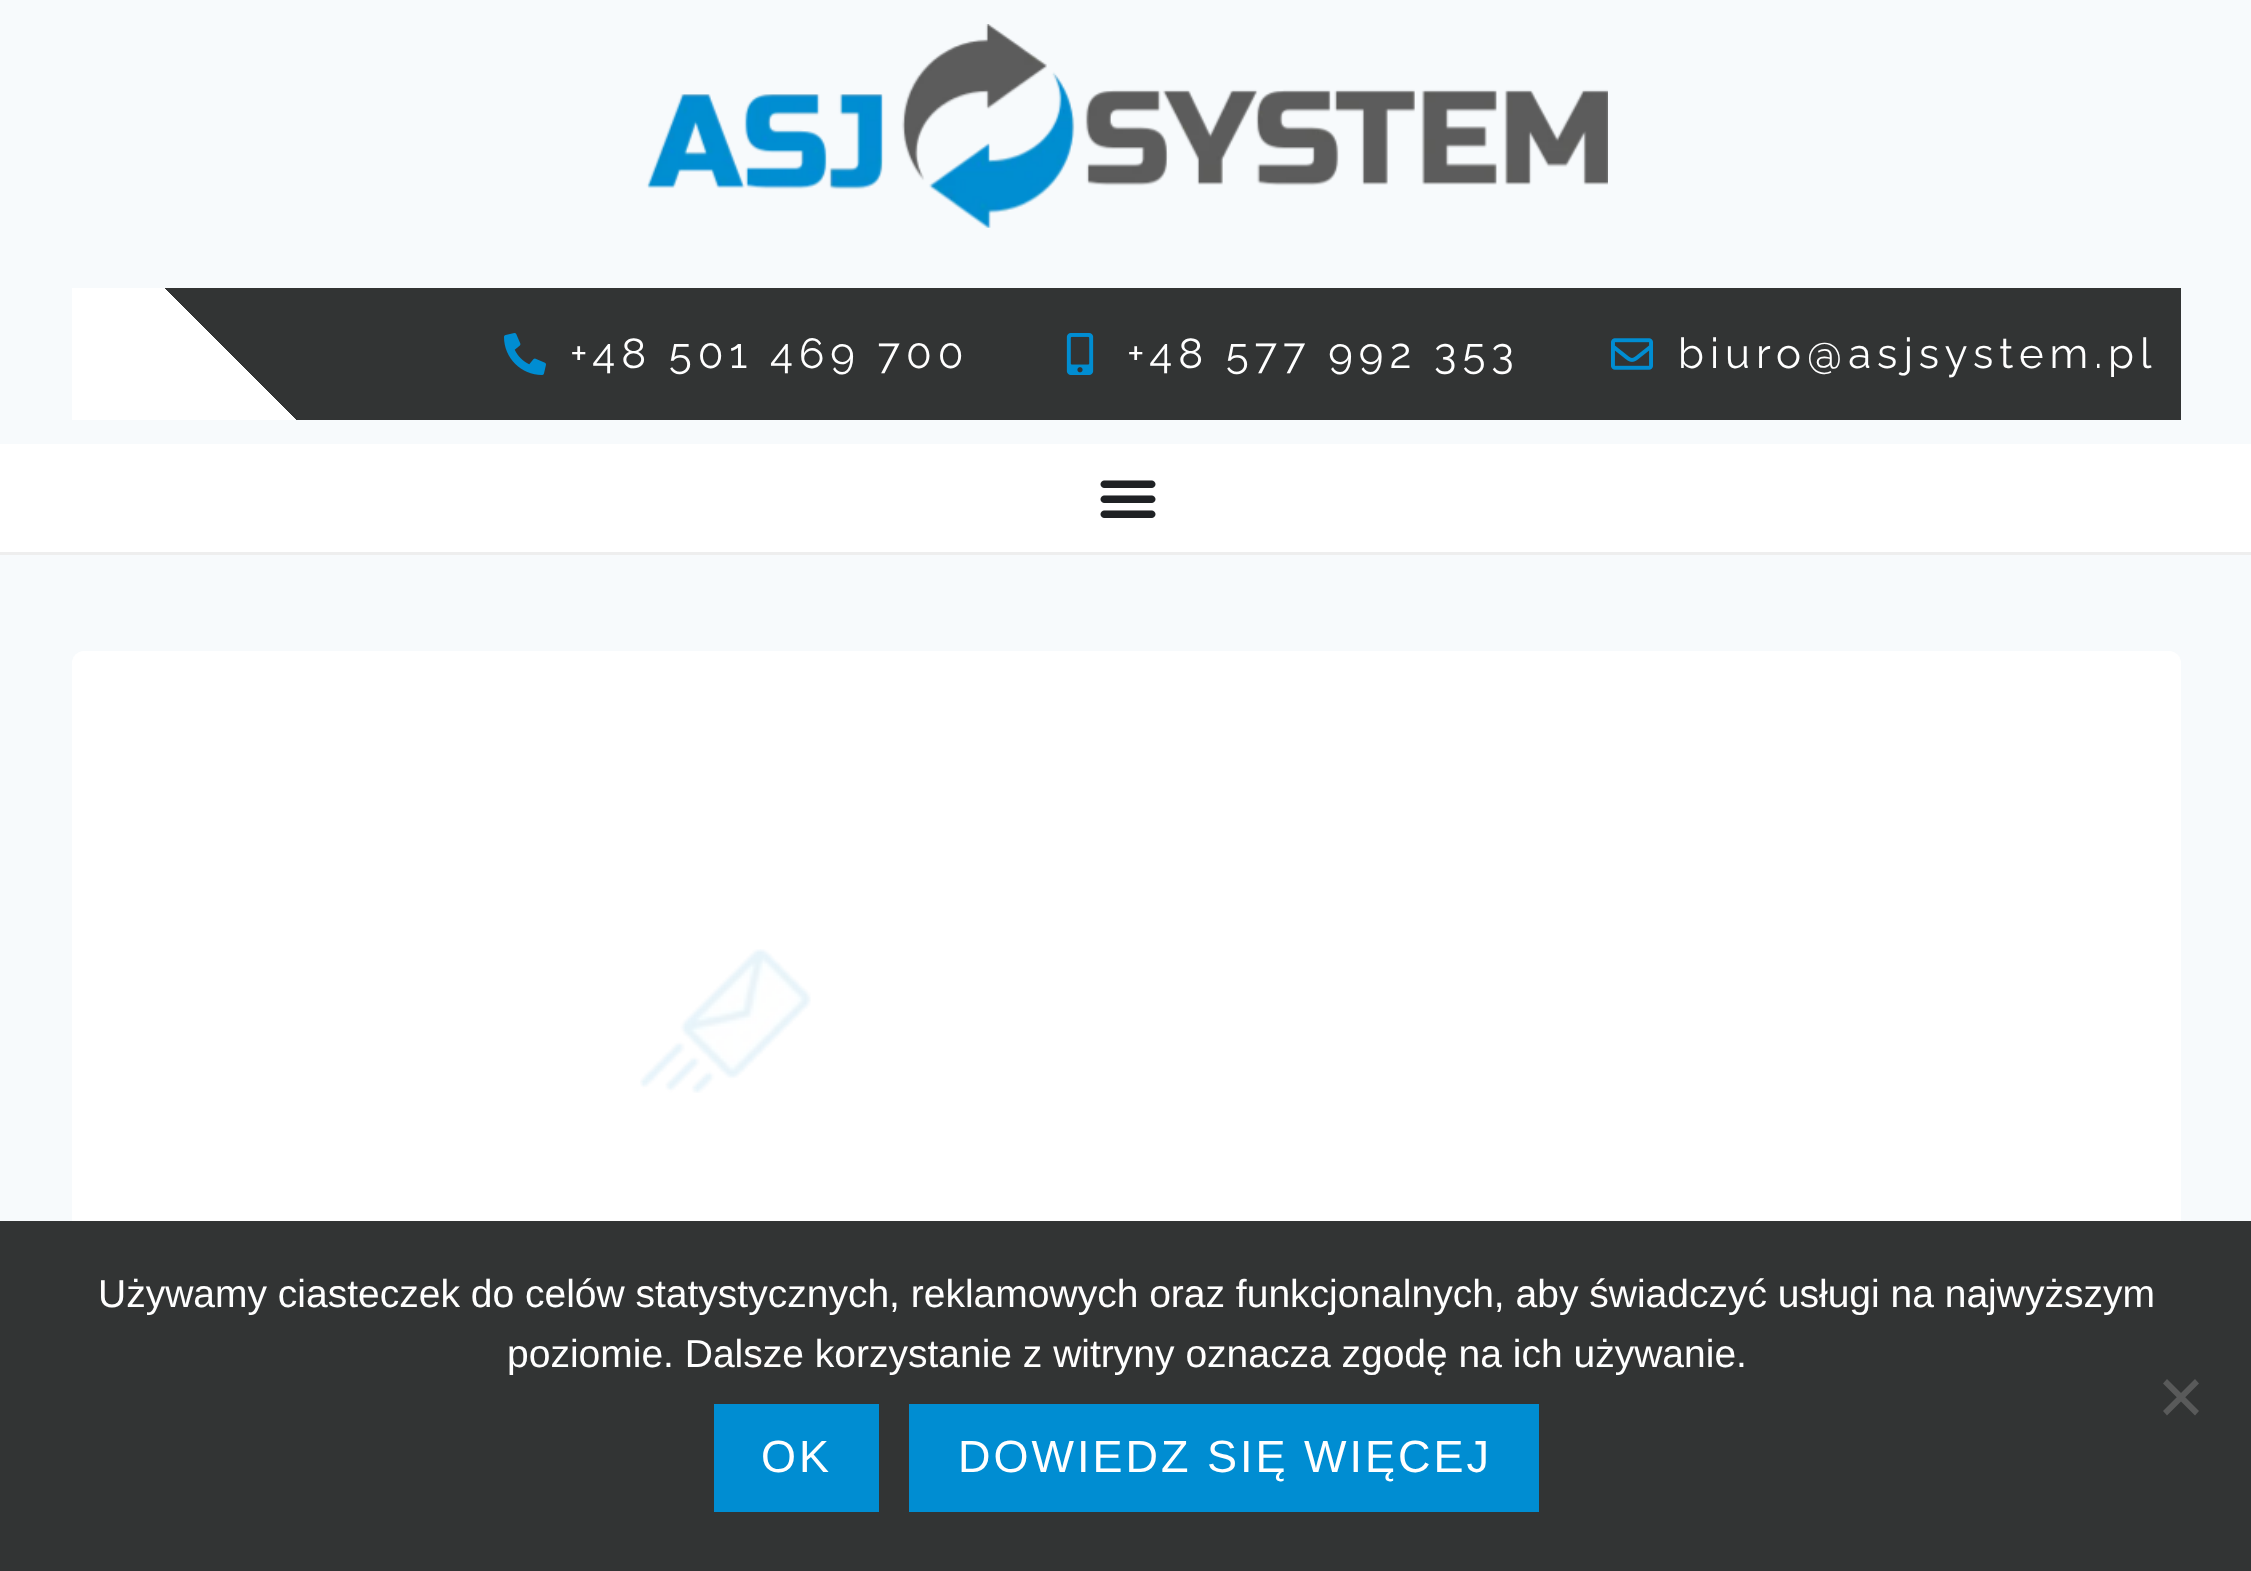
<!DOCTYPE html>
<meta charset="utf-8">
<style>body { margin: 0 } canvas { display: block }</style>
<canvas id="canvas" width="2251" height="1571"></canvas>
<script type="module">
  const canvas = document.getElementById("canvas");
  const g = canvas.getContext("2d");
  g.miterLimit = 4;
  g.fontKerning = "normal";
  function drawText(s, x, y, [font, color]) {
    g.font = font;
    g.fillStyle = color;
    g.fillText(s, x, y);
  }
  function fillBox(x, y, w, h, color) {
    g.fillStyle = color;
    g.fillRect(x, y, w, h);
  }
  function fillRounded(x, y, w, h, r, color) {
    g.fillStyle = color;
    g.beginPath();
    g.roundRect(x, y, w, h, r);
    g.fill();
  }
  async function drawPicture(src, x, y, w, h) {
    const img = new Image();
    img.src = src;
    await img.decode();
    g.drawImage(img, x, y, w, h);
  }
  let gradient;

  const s1 = ["42px Raleway", "#FFFFFF"];
  const s2 = ["39px Liberation Sans", "#FFFFFF"];
  const s3 = ["45px Liberation Sans", "#FFFFFF"];

  fillBox(0, 0, 2251, 1571, "#F7FAFC");
  await drawPicture("pic1.png", 646, 24, 962, 204);
  gradient = g.createLinearGradient(1687, -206, 566, 914);
  gradient.addColorStop(0.9, "#323434");
  gradient.addColorStop(0.9, "#FFFFFF");
  g.fillStyle = gradient;
  g.fillRect(72, 288, 2109, 132);
  await drawPicture("pic2.png", 504, 333, 42, 42);
  g.letterSpacing = "6px";
  drawText("+48 501 469 700", 570, 368, s1);
  await drawPicture("pic3.png", 1066, 333, 28, 42);
  drawText("+48 577 992 353", 1127, 368, s1);
  await drawPicture("pic4.png", 1611, 338, 42, 32);
  drawText("biuro@asjsystem.pl", 1678, 368, s1);
  fillBox(0, 444, 2251, 108, "#FFFFFF");
  fillBox(0, 552, 2251, 3, "#EEEEEE");
  await drawPicture("pic5.png", 1100, 480, 56, 38);
  fillRounded(72, 651, 2109, 792, 12, "#FFFFFF");
  await drawPicture("pic6.png", 640, 949, 171, 144);
  fillBox(0, 1221, 2251, 350, "#323434");
  g.letterSpacing = "0px";
  drawText("Używamy ciasteczek do celów statystycznych, reklamowych oraz funkcjonalnych, aby świadczyć usługi na najwyższym", 98, 1307, s2);
  drawText("poziomie. Dalsze korzystanie z witryny oznacza zgodę na ich używanie.", 507, 1367, s2);
  g.fillStyle = "#595A5A";
  g.beginPath();
  g.moveTo(2195, 1379);
  g.lineTo(2199, 1383.5);
  g.lineTo(2167, 1415.5);
  g.lineTo(2163, 1411);
  g.closePath();
  g.fill();
  g.beginPath();
  g.moveTo(2163, 1383.5);
  g.lineTo(2167, 1379);
  g.lineTo(2199, 1411);
  g.lineTo(2195, 1415.5);
  g.closePath();
  g.fill();
  fillBox(714, 1404, 165, 108, "#008DD2");
  g.letterSpacing = "3px";
  drawText("OK", 761, 1472, s3);
  fillBox(909, 1404, 630, 108, "#008DD2");
  drawText("DOWIEDZ SIĘ WIĘCEJ", 958, 1472, s3);
</script>
